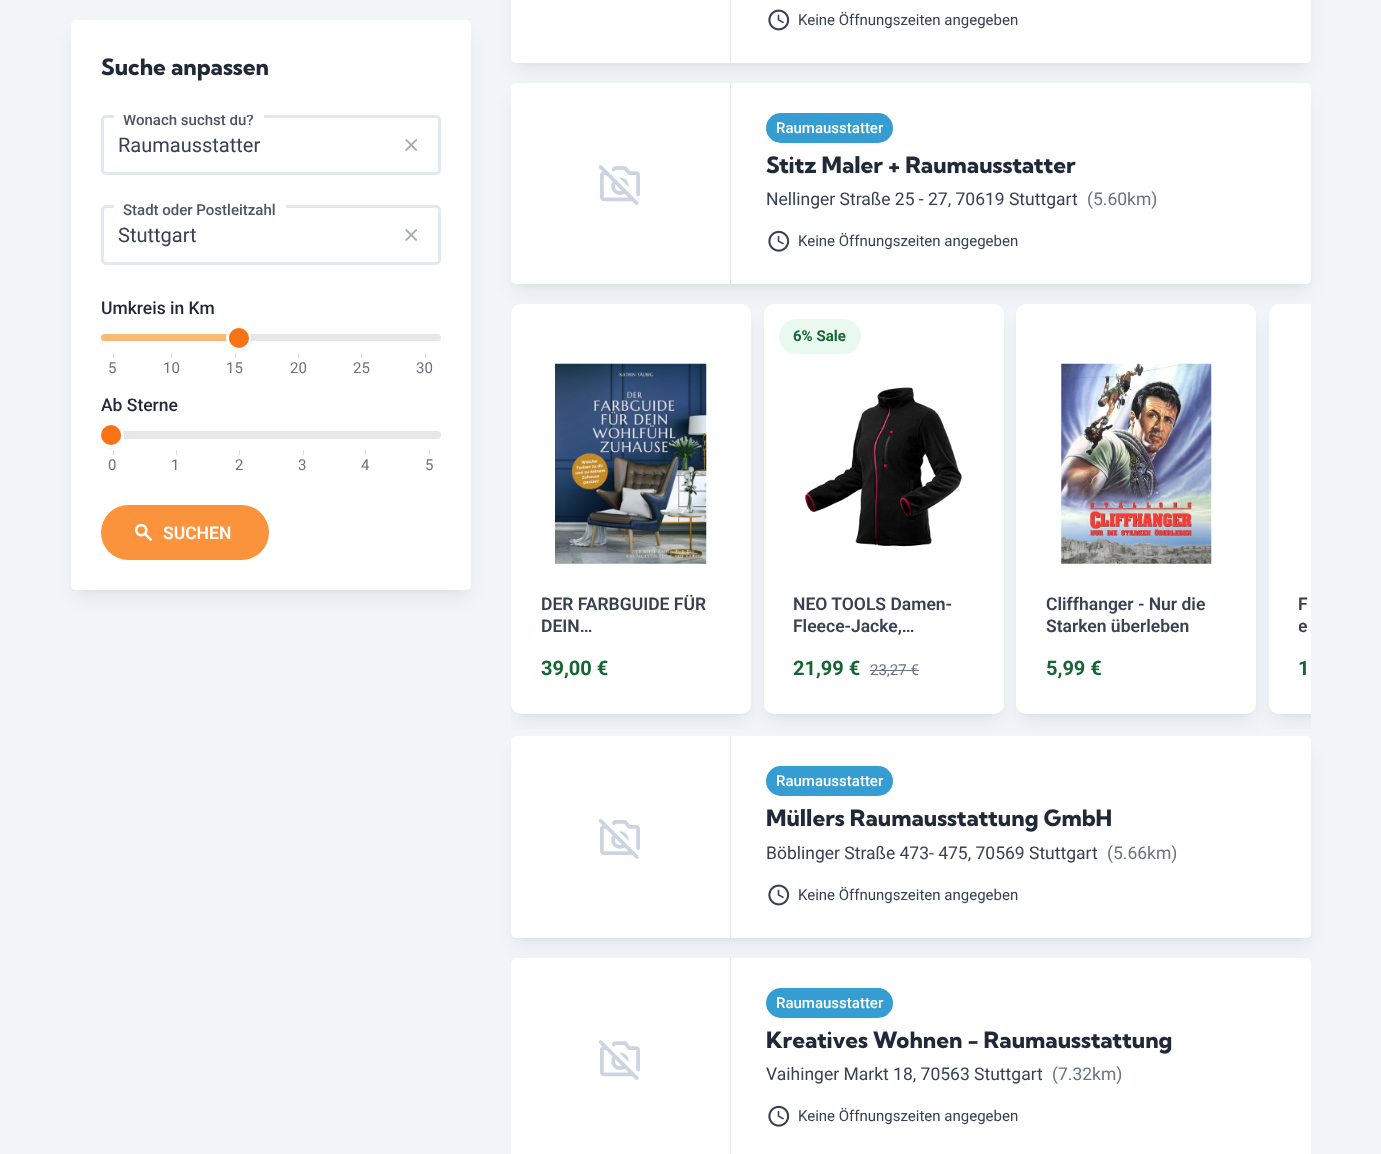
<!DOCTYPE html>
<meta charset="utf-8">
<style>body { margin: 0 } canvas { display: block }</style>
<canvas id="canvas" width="1381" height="1154"></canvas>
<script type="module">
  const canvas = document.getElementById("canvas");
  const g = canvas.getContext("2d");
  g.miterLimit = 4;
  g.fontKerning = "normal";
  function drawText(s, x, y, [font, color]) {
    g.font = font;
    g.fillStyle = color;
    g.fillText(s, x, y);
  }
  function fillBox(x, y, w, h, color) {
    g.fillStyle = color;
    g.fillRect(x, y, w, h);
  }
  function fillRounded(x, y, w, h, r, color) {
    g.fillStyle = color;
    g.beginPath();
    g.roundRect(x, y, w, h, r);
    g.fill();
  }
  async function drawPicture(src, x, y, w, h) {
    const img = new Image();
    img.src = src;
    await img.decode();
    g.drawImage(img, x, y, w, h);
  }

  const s1 = ["800 22.5px Kumbh Sans", "#1F2937"];
  const s2 = ["500 15px Roboto", "#4B5563"];
  const s3 = ["20px Roboto", "#374151"];
  const s4 = ["500 17.5px Roboto", "#1F2937"];
  const s5 = ["15px Roboto", "#6B7280"];
  const s6 = ["600 17.5px Roboto", "#FFFFFF"];
  const s7 = ["15px Roboto", "#374151"];
  const s8 = ["500 15px Roboto", "#FFFFFF"];
  const s9 = ["17.5px Roboto", "#374151"];
  const s10 = ["17.5px Roboto", "#6B7280"];
  const s11 = ["600 17.5px Roboto", "#374151"];
  const s12 = ["bold 20px Roboto", "#166534"];
  const s13 = ["bold 15px Roboto", "#166534"];

  fillBox(0, 0, 1381, 1154, "#F1F5F9");
  g.fillStyle = "rgba(0, 0, 0, 0.05)";
  g.filter = "blur(4px)";
  g.beginPath();
  g.rect(76, 30, 390, 560);
  g.fill();
  g.filter = "none";
  g.filter = "blur(9.5px)";
  g.beginPath();
  g.roundRect(75, 36, 393, 563, 1);
  g.fill();
  g.filter = "none";
  fillRounded(71, 20, 400, 570, 5, "#FFFFFF");
  drawText("Suche anpassen", 101, 75, s1);
  g.beginPath();
  g.roundRect(102.5, 116.5, 337, 57, 3.5);
  g.strokeStyle = "#E2E8F0";
  g.lineWidth = 3;
  g.stroke();
  fillBox(114, 115, 150, 3, "#FFFFFF");
  g.save();
  g.beginPath();
  g.rect(101, 115, 340, 445);
  g.clip();
  drawText("Wonach suchst du?", 123, 125, s2);
  g.restore();
  drawText("Raumausstatter", 118, 152, s3);
  await drawPicture("pic1.png", 405, 139, 12, 12);
  g.beginPath();
  g.roundRect(102.5, 206.5, 337, 57, 3.5);
  g.stroke();
  fillBox(114, 205, 172, 3, "#FFFFFF");
  drawText("Stadt oder Postleitzahl", 123, 215, s2);
  drawText("Stuttgart", 118, 242, s3);
  await drawPicture("pic1.png", 405, 229, 12, 12);
  drawText("Umkreis in Km", 101, 314, s4);
  fillRounded(101, 334, 340, 7, 3.5, "#E5E7EB");
  g.fillStyle = "#FDBA74";
  g.beginPath();
  g.roundRect(101, 334, 137, 7, [3.5, 0, 0, 3.5]);
  g.fill();
  g.fillStyle = "rgba(0, 0, 0, 0.2)";
  g.filter = "blur(1px)";
  g.beginPath();
  g.roundRect(230, 330, 18, 18, 9);
  g.fill();
  g.filter = "none";
  g.filter = "blur(2px)";
  g.beginPath();
  g.roundRect(229, 329, 20, 20, 10);
  g.fill();
  g.filter = "none";
  g.beginPath();
  g.arc(238.5, 337.5, 11, 0, Math.PI * 2);
  g.strokeStyle = "#FFFFFF";
  g.stroke();
  g.fillStyle = "#F97316";
  g.beginPath();
  g.arc(239, 338, 10, 0, Math.PI * 2);
  g.fill();
  fillBox(113, 353, 1, 5, "#DADDE2");
  drawText("5", 108, 373, s5);
  fillBox(171, 353, 1, 5, "#DADDE2");
  drawText("10", 163, 373, s5);
  fillBox(235, 353, 1, 5, "#DADDE2");
  drawText("15", 226, 373, s5);
  fillBox(298, 353, 1, 5, "#DADDE2");
  drawText("20", 290, 373, s5);
  fillBox(361, 353, 1, 5, "#DADDE2");
  drawText("25", 353, 373, s5);
  fillBox(425, 353, 1, 5, "#DADDE2");
  drawText("30", 416, 373, s5);
  drawText("Ab Sterne", 101, 411, s4);
  fillRounded(101, 431, 340, 8, 4, "#E5E7EB");
  g.fillStyle = "rgba(0, 0, 0, 0.2)";
  g.filter = "blur(1px)";
  g.beginPath();
  g.roundRect(103, 428, 17, 17, 8.5);
  g.fill();
  g.filter = "none";
  g.save();
  g.beginPath();
  g.rect(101, 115, 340, 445);
  g.clip();
  g.filter = "blur(2px)";
  g.beginPath();
  g.roundRect(101, 426, 20, 20, 10);
  g.fill();
  g.filter = "none";
  g.restore();
  g.save();
  g.beginPath();
  g.rect(101, 115, 340, 445);
  g.clip();
  g.beginPath();
  g.arc(111.5, 435.5, 11, 0, Math.PI * 2);
  g.stroke();
  g.restore();
  g.fillStyle = "#F97316";
  g.beginPath();
  g.arc(111, 435, 10, 0, Math.PI * 2);
  g.fill();
  fillBox(113, 450, 1, 5, "#DADDE2");
  drawText("0", 108, 470, s5);
  fillBox(176, 450, 1, 5, "#DADDE2");
  drawText("1", 171, 470, s5);
  fillBox(239, 450, 1, 5, "#DADDE2");
  drawText("2", 235, 470, s5);
  fillBox(303, 450, 1, 5, "#DADDE2");
  drawText("3", 298, 470, s5);
  fillBox(365, 450, 1, 5, "#DADDE2");
  drawText("4", 361, 470, s5);
  fillBox(429, 450, 1, 5, "#DADDE2");
  drawText("5", 425, 470, s5);
  fillRounded(101, 505, 168, 55, 27.5, "#FB923C");
  await drawPicture("pic2.png", 135, 523, 17, 18);
  drawText("SUCHEN", 163, 539, s6);
  g.fillStyle = "rgba(0, 0, 0, 0.05)";
  g.filter = "blur(4px)";
  g.beginPath();
  g.rect(516, -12, 790, 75);
  g.fill();
  g.filter = "none";
  g.filter = "blur(9.5px)";
  g.beginPath();
  g.roundRect(515, -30, 793, 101, 1);
  g.fill();
  g.filter = "none";
  fillRounded(511, -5, 800, 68, 5, "#FFFFFF");
  fillBox(730, 0, 1, 63, "#E5E7EB");
  await drawPicture("pic3.png", 768, 9, 22, 22);
  drawText("Keine Öffnungszeiten angegeben", 798, 25, s7);
  g.fillStyle = "rgba(0, 0, 0, 0.05)";
  g.filter = "blur(4px)";
  g.beginPath();
  g.rect(516, 93, 790, 191);
  g.fill();
  g.filter = "none";
  g.filter = "blur(9.5px)";
  g.beginPath();
  g.roundRect(515, 99, 793, 194, 1);
  g.fill();
  g.filter = "none";
  fillRounded(511, 83, 800, 201, 5, "#FFFFFF");
  fillBox(730, 83, 1, 201, "#E5E7EB");
  await drawPicture("pic4.png", 598, 165, 42, 40);
  fillRounded(766, 113, 127, 30, 15, "#359DD2");
  drawText("Raumausstatter", 776, 133, s8);
  drawText("Stitz Maler + Raumausstatter", 766, 173, s1);
  drawText("Nellinger Straße 25 - 27, 70619 Stuttgart", 766, 205, s9);
  drawText("(5.60km)", 1087, 205, s10);
  await drawPicture("pic5.png", 768, 230, 22, 22);
  drawText("Keine Öffnungszeiten angegeben", 798, 246, s7);
  g.fillStyle = "rgba(0, 0, 0, 0.05)";
  g.filter = "blur(4px)";
  g.beginPath();
  g.roundRect(516, 314, 230, 400, 5);
  g.fill();
  g.filter = "none";
  g.save();
  g.beginPath();
  g.rect(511, 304, 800, 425);
  g.clip();
  g.filter = "blur(9.5px)";
  g.beginPath();
  g.roundRect(515, 320, 233, 403, 6);
  g.fill();
  g.filter = "none";
  g.restore();
  fillRounded(511, 304, 240, 410, 10, "#FFFFFF");
  await drawPicture("pic6.png", 555, 363, 152, 201);
  drawText("DER FARBGUIDE FÜR", 541, 610, s11);
  drawText("DEIN…", 541, 632, s11);
  drawText("39,00 €", 541, 675, s12);
  g.fillStyle = "rgba(0, 0, 0, 0.05)";
  g.filter = "blur(4px)";
  g.beginPath();
  g.roundRect(769, 314, 230, 400, 5);
  g.fill();
  g.filter = "none";
  g.filter = "blur(9.5px)";
  g.beginPath();
  g.roundRect(768, 320, 232, 403, 6);
  g.fill();
  g.filter = "none";
  fillRounded(764, 304, 240, 410, 10, "#FFFFFF");
  fillRounded(779, 319, 82, 35, 17.5, "#E9F9EF");
  drawText("6% Sale", 793, 341, s13);
  await drawPicture("pic7.png", 804, 387, 158, 160);
  drawText("NEO TOOLS Damen-", 793, 610, s11);
  drawText("Fleece-Jacke,…", 793, 632, s11);
  drawText("21,99 €", 793, 675, s12);
  drawText("23,27 €", 870, 675, s5);
  fillBox(870, 670, 49, 1, "#6B7280");
  g.fillStyle = "rgba(0, 0, 0, 0.05)";
  g.filter = "blur(4px)";
  g.beginPath();
  g.roundRect(1021, 314, 230, 400, 5);
  g.fill();
  g.filter = "none";
  g.filter = "blur(9.5px)";
  g.beginPath();
  g.roundRect(1020, 320, 233, 403, 6);
  g.fill();
  g.filter = "none";
  fillRounded(1016, 304, 240, 410, 10, "#FFFFFF");
  await drawPicture("pic8.png", 1061, 363, 151, 201);
  drawText("Cliffhanger - Nur die", 1046, 610, s11);
  drawText("Starken überleben", 1046, 632, s11);
  drawText("5,99 €", 1046, 675, s12);
  g.save();
  g.beginPath();
  g.rect(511, 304, 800, 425);
  g.clip();
  g.fillStyle = "rgba(0, 0, 0, 0.05)";
  g.filter = "blur(4px)";
  g.beginPath();
  g.roundRect(1274, 314, 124, 400, 5);
  g.fill();
  g.filter = "none";
  g.filter = "blur(9.5px)";
  g.beginPath();
  g.roundRect(1273, 320, 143, 403, 6);
  g.fill();
  g.filter = "none";
  g.restore();
  g.fillStyle = "#FFFFFF";
  g.beginPath();
  g.roundRect(1269, 304, 42, 410, [10, 0, 0, 10]);
  g.fill();
  drawText("F", 1298, 610, s11);
  g.save();
  g.beginPath();
  g.rect(1299, 594, 12, 45);
  g.clip();
  drawText("e", 1298, 632, s11);
  g.restore();
  drawText("1", 1298, 675, s12);
  g.fillStyle = "rgba(0, 0, 0, 0.05)";
  g.filter = "blur(4px)";
  g.beginPath();
  g.rect(516, 746, 790, 192);
  g.fill();
  g.filter = "none";
  g.filter = "blur(9.5px)";
  g.beginPath();
  g.roundRect(515, 753, 793, 193, 1);
  g.fill();
  g.filter = "none";
  fillRounded(511, 736, 800, 202, 5, "#FFFFFF");
  fillBox(730, 736, 1, 202, "#E5E7EB");
  await drawPicture("pic9.png", 598, 818, 42, 41);
  fillRounded(766, 766, 127, 30, 15, "#359DD2");
  drawText("Raumausstatter", 776, 786, s8);
  drawText("Müllers Raumausstattung GmbH", 766, 826, s1);
  drawText("Böblinger Straße 473- 475, 70569 Stuttgart", 766, 859, s9);
  drawText("(5.66km)", 1107, 859, s10);
  await drawPicture("pic3.png", 768, 884, 22, 22);
  drawText("Keine Öffnungszeiten angegeben", 798, 900, s7);
  fillRounded(511, 958, 800, 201, 5, "#FFFFFF");
  fillBox(730, 958, 1, 196, "#E5E7EB");
  await drawPicture("pic4.png", 598, 1040, 42, 40);
  fillRounded(766, 988, 127, 30, 15, "#359DD2");
  drawText("Raumausstatter", 776, 1008, s8);
  drawText("Kreatives Wohnen - Raumausstattung", 766, 1048, s1);
  drawText("Vaihinger Markt 18, 70563 Stuttgart", 766, 1080, s9);
  drawText("(7.32km)", 1052, 1080, s10);
  await drawPicture("pic5.png", 768, 1105, 22, 22);
  drawText("Keine Öffnungszeiten angegeben", 798, 1121, s7);
</script>
